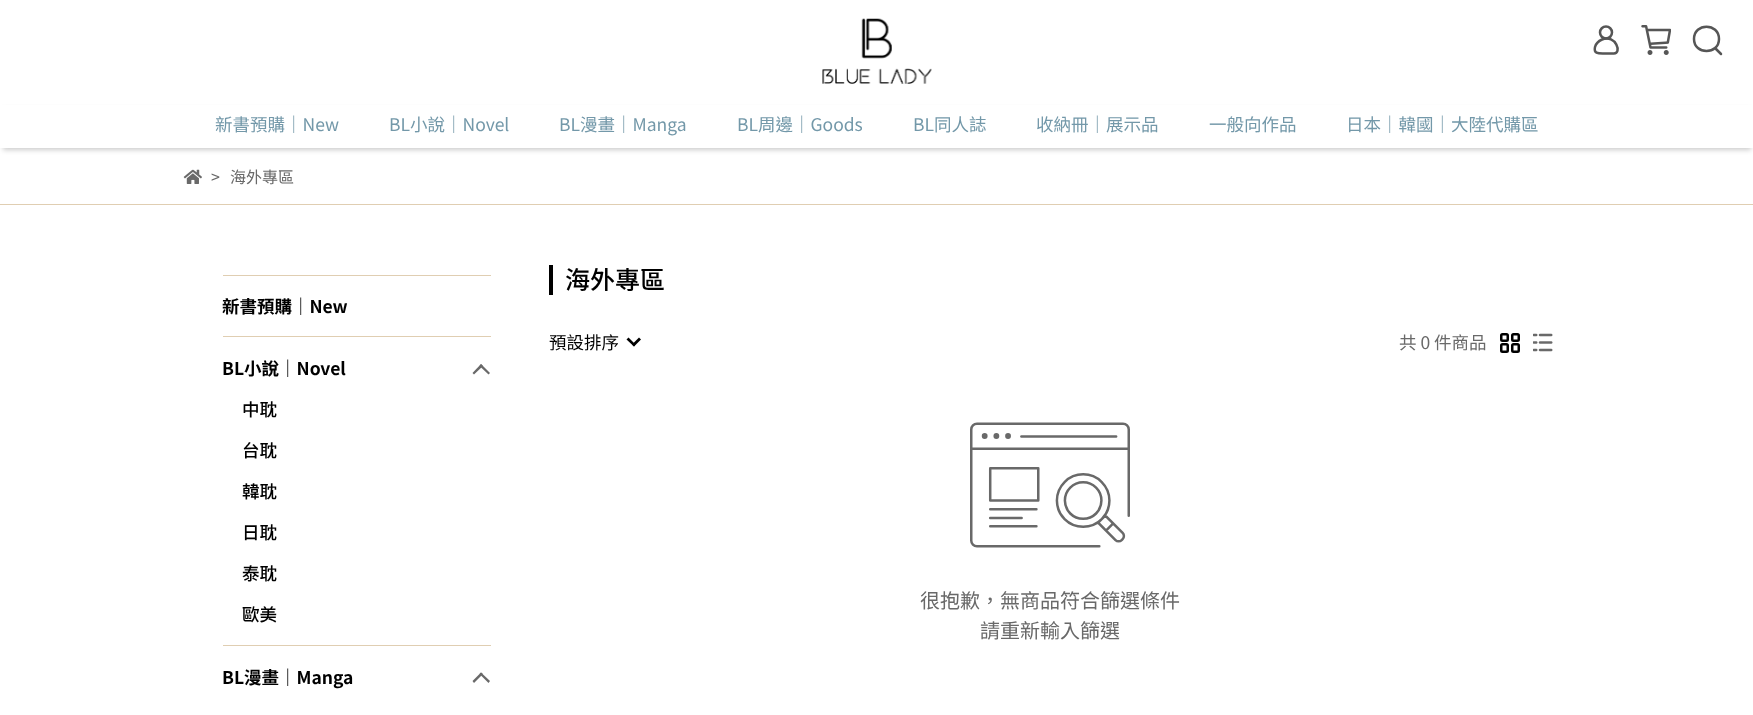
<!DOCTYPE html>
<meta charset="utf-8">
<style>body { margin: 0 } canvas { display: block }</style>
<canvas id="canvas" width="1753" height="715"></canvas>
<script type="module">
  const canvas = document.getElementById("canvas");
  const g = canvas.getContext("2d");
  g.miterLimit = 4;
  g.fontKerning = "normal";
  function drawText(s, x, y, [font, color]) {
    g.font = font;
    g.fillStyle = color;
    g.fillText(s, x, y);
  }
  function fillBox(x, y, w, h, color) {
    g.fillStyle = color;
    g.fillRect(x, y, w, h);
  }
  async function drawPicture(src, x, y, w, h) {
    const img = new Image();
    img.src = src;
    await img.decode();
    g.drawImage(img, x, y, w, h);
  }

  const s1 = ["17.5px Noto Sans TC", "#7398A9"];
  const s2 = ["16px Noto Sans TC", "#696969"];
  const s3 = ["bold 17.5px Noto Sans TC", "#000000"];
  const s4 = ["500 17.5px Noto Sans TC", "#000000"];
  const s5 = ["500 25px Noto Sans TC", "#000000"];
  const s6 = ["17.5px Noto Sans TC", "#000000"];
  const s7 = ["17.5px Noto Sans TC", "#696969"];
  const s8 = ["20px Noto Sans TC", "#696969"];

  fillBox(0, 0, 1753, 715, "#FFFFFF");
  await drawPicture("pic1.png", 822, 18, 110, 66);
  g.beginPath();
  g.arc(1606, 32.5, 6, 0, Math.PI * 2);
  g.strokeStyle = "#565656";
  g.lineWidth = 2.5;
  g.stroke();
  g.beginPath();
  g.moveTo(1613.5, 53.5);
  g.lineTo(1604, 53.5);
  g.bezierCurveTo(1598.5, 53.5, 1593.5, 54, 1595, 47);
  g.bezierCurveTo(1596, 43.5, 1598.5, 41, 1602, 39.5);
  g.bezierCurveTo(1616, 34, 1622.5, 54, 1613.5, 53.5);
  g.closePath();
  g.stroke();
  await drawPicture("pic2.png", 1641, 25, 30, 30);
  g.beginPath();
  g.moveTo(1719, 39);
  g.bezierCurveTo(1719, 55, 1694, 55, 1694, 39);
  g.bezierCurveTo(1694, 22.5, 1719, 22.5, 1719, 39);
  g.closePath();
  g.moveTo(1716, 49);
  g.lineTo(1721, 54);
  g.lineCap = "round";
  g.lineJoin = "round";
  g.stroke();
  g.fillStyle = "rgba(0, 0, 0, 0.2)";
  g.filter = "blur(2.5px)";
  g.beginPath();
  g.rect(3, 109, 1748, 41);
  g.fill();
  g.filter = "none";
  fillBox(0, 105, 1753, 43, "#FFFFFF");
  drawText("新書預購｜New", 215, 131, s1);
  drawText("BL小說｜Novel", 389, 131, s1);
  drawText("BL漫畫｜Manga", 559, 131, s1);
  drawText("BL周邊｜Goods", 737, 131, s1);
  drawText("BL同人誌", 913, 131, s1);
  drawText("收納冊｜展示品", 1036, 131, s1);
  drawText("一般向作品", 1209, 131, s1);
  drawText("日本｜韓國｜大陸代購區", 1346, 131, s1);
  fillBox(0, 204, 1753, 1, "#E0CEB2");
  await drawPicture("pic3.png", 183, 169, 19, 15);
  drawText(">", 211, 183, s2);
  drawText("海外專區", 230, 183, s2);
  fillBox(223, 275, 268, 1, "#E0CEB2");
  fillBox(223, 336, 268, 1, "#E0CEB2");
  drawText("新書預購｜New", 222, 313, s3);
  fillBox(223, 645, 268, 1, "#E0CEB2");
  drawText("BL小說｜Novel", 222, 375, s3);
  g.fillStyle = "#696969";
  g.beginPath();
  g.moveTo(483, 366);
  g.lineTo(474, 374.5);
  g.lineTo(472.5, 373);
  g.lineTo(481, 364);
  g.closePath();
  g.fill();
  g.beginPath();
  g.moveTo(490, 373);
  g.lineTo(488.5, 374.5);
  g.lineTo(479.5, 366);
  g.lineTo(481, 364);
  g.closePath();
  g.fill();
  drawText("中耽", 242, 416, s4);
  drawText("台耽", 242, 457, s4);
  drawText("韓耽", 242, 498, s4);
  drawText("日耽", 242, 539, s4);
  drawText("泰耽", 242, 580, s4);
  drawText("歐美", 242, 621, s4);
  drawText("BL漫畫｜Manga", 222, 684, s3);
  g.fillStyle = "#696969";
  g.beginPath();
  g.moveTo(483, 674);
  g.lineTo(474, 683);
  g.lineTo(472.5, 681);
  g.lineTo(481, 672.5);
  g.closePath();
  g.fill();
  g.beginPath();
  g.moveTo(490, 681);
  g.lineTo(488.5, 683);
  g.lineTo(479.5, 674);
  g.lineTo(481, 672.5);
  g.closePath();
  g.fill();
  fillBox(549, 265, 4, 30, "#000000");
  drawText("海外專區", 565, 289, s5);
  drawText("預設排序", 549, 349, s6);
  g.beginPath();
  g.moveTo(639, 337.5);
  g.lineTo(641, 339.5);
  g.lineTo(634, 346.5);
  g.lineTo(632, 344.5);
  g.closePath();
  g.fill();
  g.beginPath();
  g.moveTo(628.5, 337.5);
  g.lineTo(635.5, 344.5);
  g.lineTo(634, 346.5);
  g.lineTo(626.5, 339.5);
  g.closePath();
  g.fill();
  drawText("共 0 件商品", 1399, 349, s7);
  g.beginPath();
  g.roundRect(1501.25, 334.25, 6.5, 6.5, 1.25);
  g.strokeStyle = "#000000";
  g.lineJoin = "miter";
  g.stroke();
  g.beginPath();
  g.roundRect(1501.25, 344.25, 6.5, 7.5, 1.25);
  g.stroke();
  g.beginPath();
  g.roundRect(1512.25, 334.25, 6.5, 6.5, 1.25);
  g.stroke();
  g.beginPath();
  g.roundRect(1512.25, 344.25, 6.5, 7.5, 1.25);
  g.stroke();
  await drawPicture("pic4.png", 1533, 333, 20, 19);
  await drawPicture("pic5.png", 970, 422, 160, 126);
  drawText("很抱歉，無商品符合篩選條件", 920, 608, s8);
  drawText("請重新輸入篩選", 980, 638, s8);
</script>
